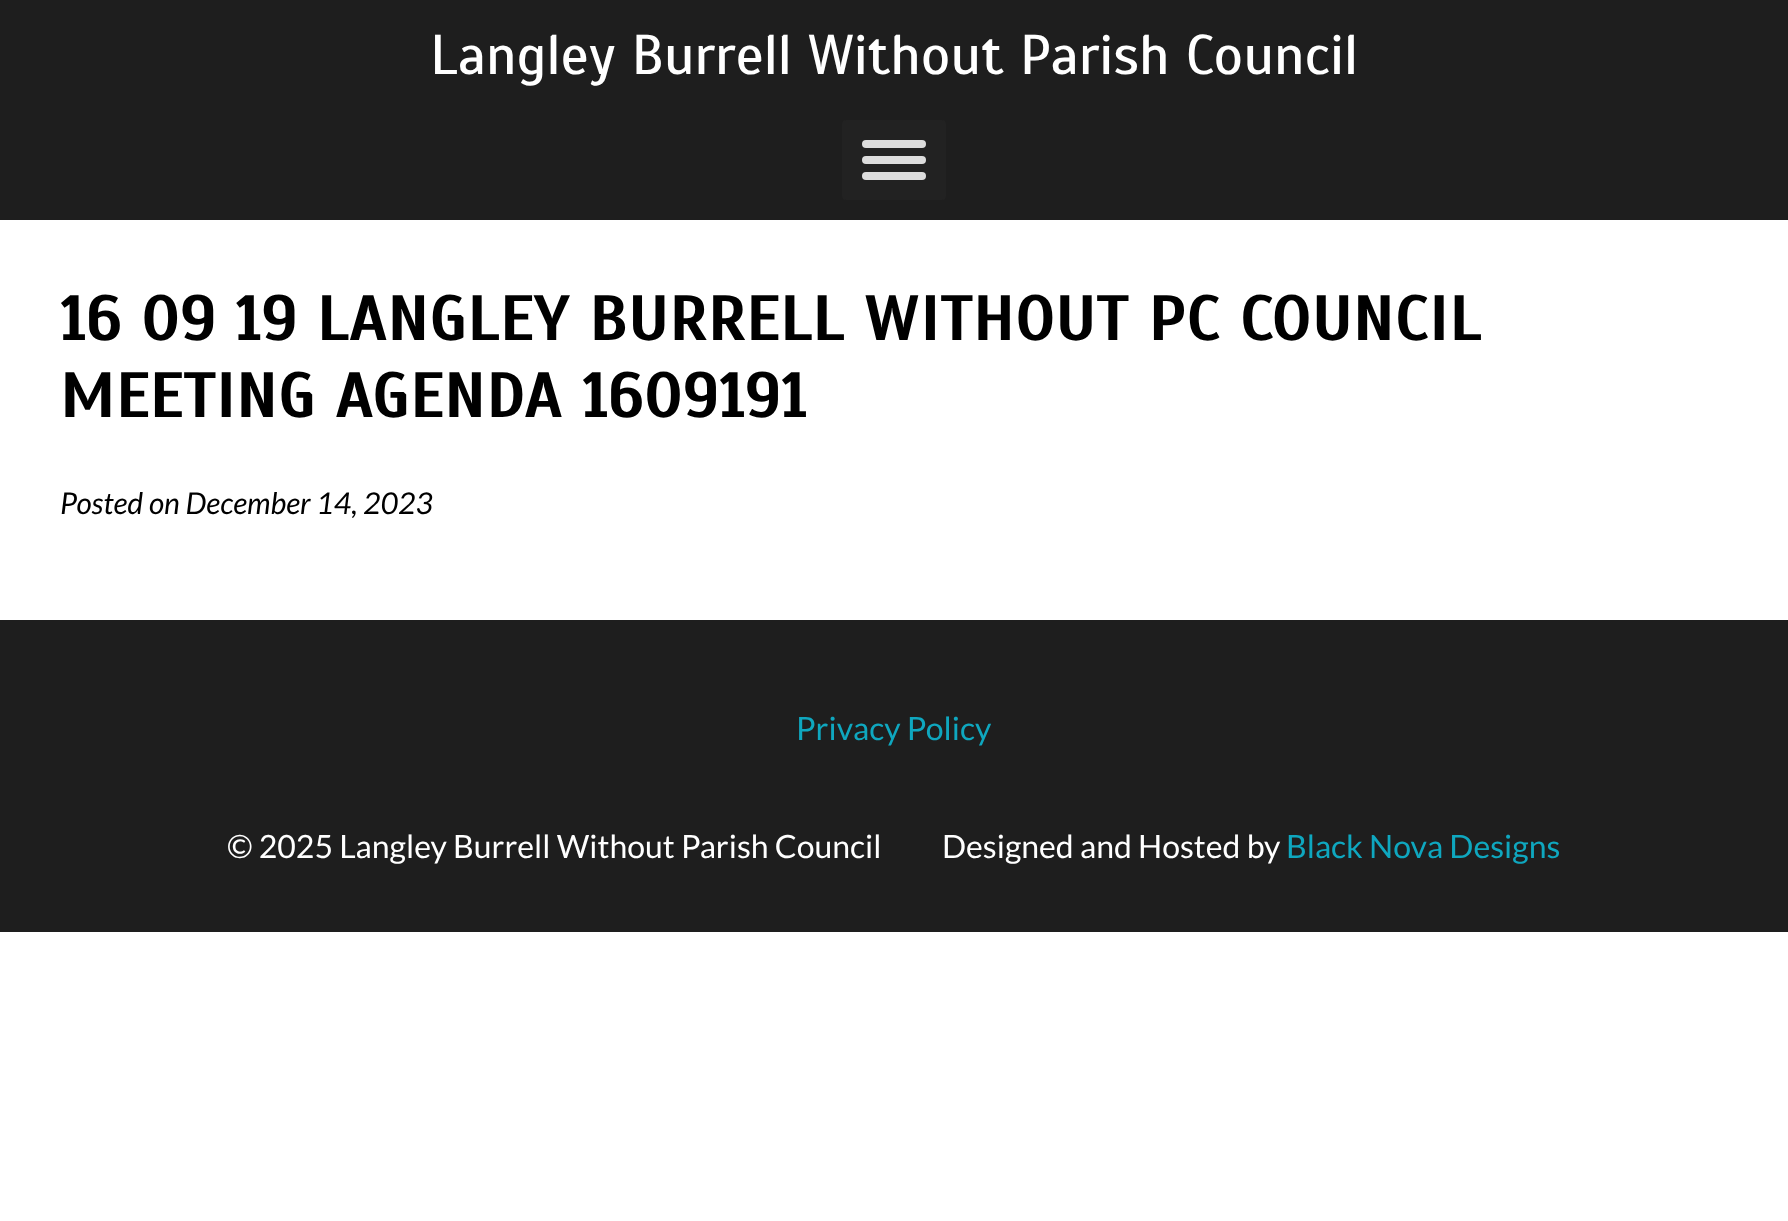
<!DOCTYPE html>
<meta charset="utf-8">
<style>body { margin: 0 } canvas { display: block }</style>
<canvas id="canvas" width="1788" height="1221"></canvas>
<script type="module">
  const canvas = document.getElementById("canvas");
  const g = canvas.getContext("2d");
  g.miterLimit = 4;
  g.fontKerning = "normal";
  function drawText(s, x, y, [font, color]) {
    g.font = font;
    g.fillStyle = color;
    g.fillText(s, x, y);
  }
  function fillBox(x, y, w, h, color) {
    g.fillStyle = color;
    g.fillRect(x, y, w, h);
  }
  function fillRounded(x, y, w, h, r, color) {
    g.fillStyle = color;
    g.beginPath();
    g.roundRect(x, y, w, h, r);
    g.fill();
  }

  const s1 = ["56px Scada", "#FFFFFF"];
  const s2 = ["bold 64px Scada", "#000000"];
  const s3 = ["italic 30px Lato", "#000000"];
  const s4 = ["32px Lato", "#0FA7BF"];
  const s5 = ["32px Lato", "#FFFFFF"];

  fillBox(0, 0, 1788, 1221, "#FFFFFF");
  fillBox(0, 0, 1788, 220, "#1E1E1E");
  drawText("Langley Burrell Without Parish Council", 430, 74, s1);
  fillRounded(842, 120, 104, 80, 4, "#222222");
  fillRounded(862, 140, 64, 8, 4, "#DDDDDD");
  fillRounded(862, 156, 64, 8, 4, "#DDDDDD");
  fillRounded(862, 172, 64, 8, 4, "#DDDDDD");
  drawText("16 09 19 LANGLEY BURRELL WITHOUT PC COUNCIL", 60, 340, s2);
  drawText("MEETING AGENDA 1609191", 60, 417, s2);
  drawText("Posted on December 14, 2023", 60, 514, s3);
  fillBox(0, 620, 1788, 312, "#1E1E1E");
  drawText("Privacy Policy", 796, 740, s4);
  drawText("© 2025 Langley Burrell Without Parish Council", 227, 858, s5);
  drawText("Designed and Hosted by", 942, 858, s5);
  drawText("Black Nova Designs", 1286, 858, s4);
</script>
